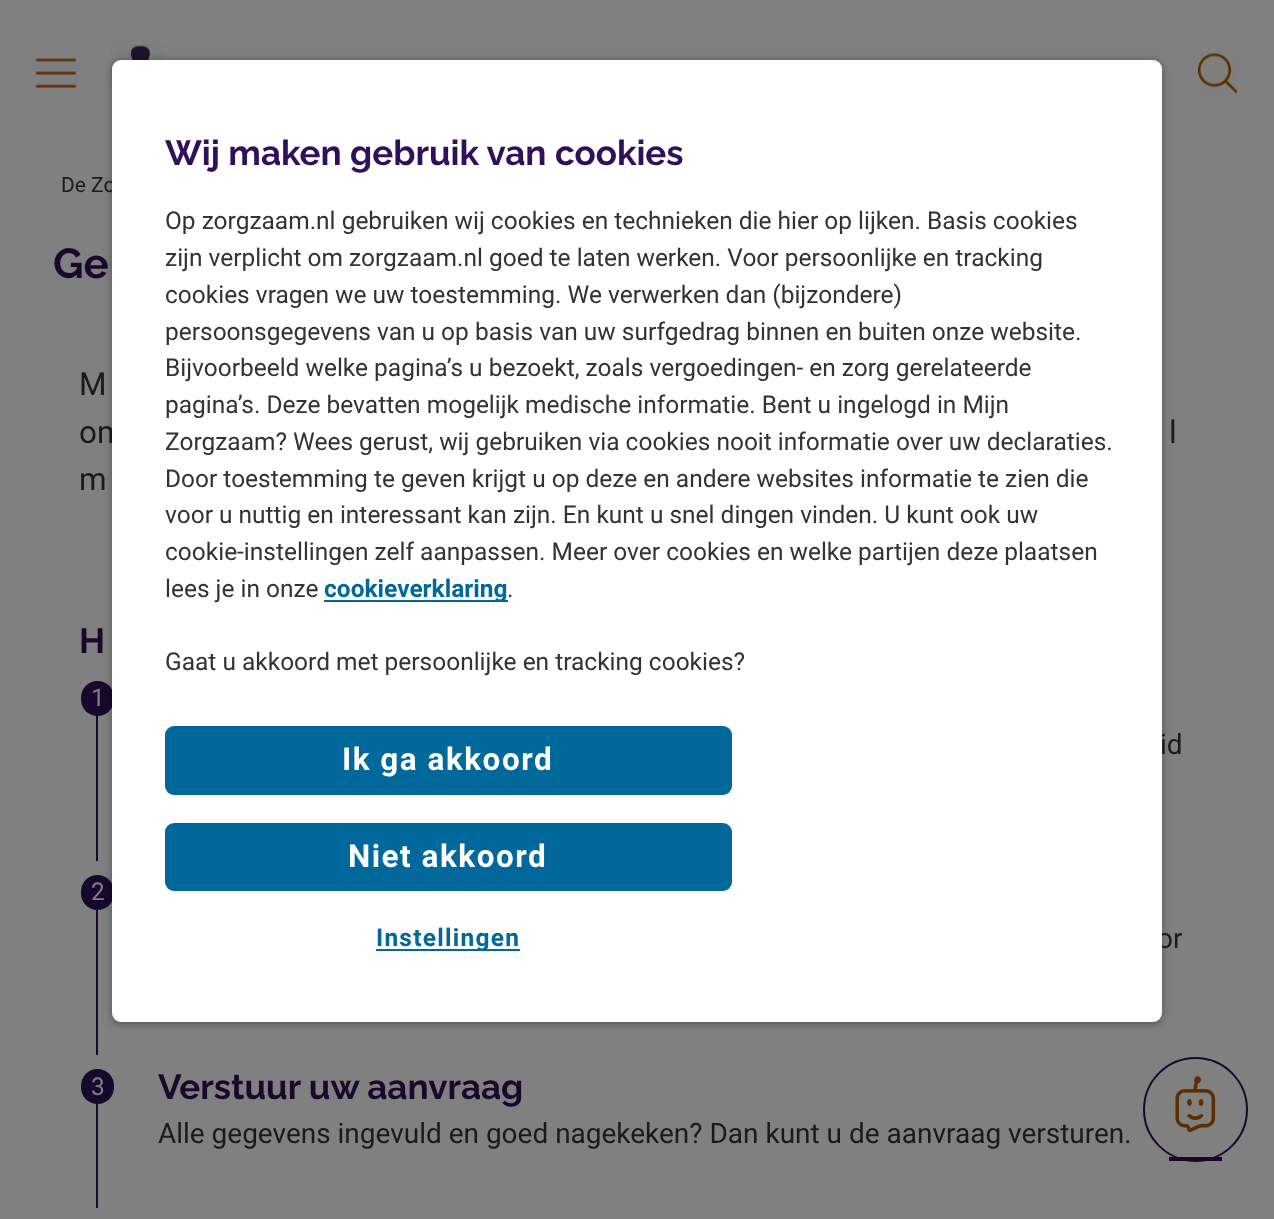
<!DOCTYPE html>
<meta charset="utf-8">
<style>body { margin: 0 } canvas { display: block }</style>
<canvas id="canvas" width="1274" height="1219"></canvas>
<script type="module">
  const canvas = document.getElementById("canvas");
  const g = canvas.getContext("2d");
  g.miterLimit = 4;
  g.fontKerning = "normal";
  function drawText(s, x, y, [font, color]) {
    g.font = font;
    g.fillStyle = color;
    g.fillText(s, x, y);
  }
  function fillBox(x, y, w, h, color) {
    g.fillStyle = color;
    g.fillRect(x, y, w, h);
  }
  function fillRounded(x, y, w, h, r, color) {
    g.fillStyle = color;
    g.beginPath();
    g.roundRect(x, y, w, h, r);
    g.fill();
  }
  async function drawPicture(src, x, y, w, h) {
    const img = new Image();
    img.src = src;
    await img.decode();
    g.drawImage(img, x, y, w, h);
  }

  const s1 = ["21px Roboto", "#1A1A1A"];
  const s2 = ["31.5px Roboto", "#1A1A1A"];
  const s3 = ["28px Roboto", "#1A1A1A"];
  const s4 = ["100 35px Raleway", "#310F5B"];
  const s5 = ["24.5px Roboto", "#333333"];
  const s6 = ["bold 24.5px Roboto", "#01689B"];
  const s7 = ["bold 31.5px Roboto", "#FFFFFF"];
  const s8 = ["100 42px Raleway", "#19082E"];
  const s9 = ["100 35px Raleway", "#19082E"];
  const s10 = ["24.5px Roboto", "#808080"];

  fillBox(0, 0, 1274, 1219, "#808080");
  await drawPicture("pic2.png", 110, 44, 55, 41);
  fillBox(96, 681, 2, 180, "#19082E");
  fillRounded(81, 681, 33, 35, 16.5, "#19082E");
  fillBox(96, 875, 2, 180, "#19082E");
  fillRounded(81, 875, 33, 35, 16.5, "#19082E");
  g.fillStyle = "rgba(0, 0, 0, 0.35)";
  g.filter = "blur(4.5px)";
  g.beginPath();
  g.roundRect(112, 61, 1050, 963, 9);
  g.fill();
  g.filter = "none";
  drawText("De Zo", 61, 192, s1);
  drawText("om", 79, 443, s2);
  drawText("or", 1157, 948, s3);
  fillRounded(112, 60, 1050, 962, 9, "#FFFFFF");
  drawText("Wij maken gebruik van cookies", 165, 165, s4);
  drawText("Op zorgzaam.nl gebruiken wij cookies en technieken die hier op lijken. Basis cookies", 165, 229, s5);
  drawText("zijn verplicht om zorgzaam.nl goed te laten werken. Voor persoonlijke en tracking", 165, 266, s5);
  drawText("cookies vragen we uw toestemming. We verwerken dan (bijzondere)", 165, 303, s5);
  drawText("persoonsgegevens van u op basis van uw surfgedrag binnen en buiten onze website.", 165, 340, s5);
  drawText("Bijvoorbeeld welke pagina’s u bezoekt, zoals vergoedingen- en zorg gerelateerde", 165, 376, s5);
  drawText("pagina’s. Deze bevatten mogelijk medische informatie. Bent u ingelogd in Mijn", 165, 413, s5);
  drawText("Zorgzaam? Wees gerust, wij gebruiken via cookies nooit informatie over uw declaraties.", 165, 450, s5);
  drawText("Door toestemming te geven krijgt u op deze en andere websites informatie te zien die", 165, 487, s5);
  drawText("voor u nuttig en interessant kan zijn. En kunt u snel dingen vinden. U kunt ook uw", 165, 523, s5);
  drawText("cookie-instellingen zelf aanpassen. Meer over cookies en welke partijen deze plaatsen", 165, 560, s5);
  drawText("lees je in onze", 165, 597, s5);
  fillBox(324, 600, 184, 2, "#01689B");
  drawText("cookieverklaring", 324, 597, s6);
  drawText(".", 507, 597, s5);
  drawText("Gaat u akkoord met persoonlijke en tracking cookies?", 165, 670, s5);
  fillRounded(165, 726, 567, 69, 9, "#01689B");
  g.letterSpacing = "1.5px";
  drawText("Ik ga akkoord", 342, 770, s7);
  fillRounded(165, 823, 567, 68, 9, "#01689B");
  drawText("Niet akkoord", 348, 867, s7);
  fillBox(376, 949, 144, 2, "#01689B");
  g.letterSpacing = "1.25px";
  drawText("Instellingen", 376, 946, s6);
  await drawPicture("pic1.png", 35, 58, 42, 30);
  await drawPicture("pic3.png", 1197, 53, 41, 41);
  g.letterSpacing = "0px";
  drawText("Ge", 53, 278, s8);
  drawText("M", 79, 395, s2);
  drawText("l", 1169, 443, s2);
  drawText("m", 79, 490, s2);
  drawText("H", 79, 653, s9);
  drawText("1", 91, 706, s10);
  drawText("id", 1160, 754, s3);
  drawText("2", 91, 900, s10);
  fillBox(96, 1069, 2, 139, "#19082E");
  fillRounded(81, 1069, 33, 35, 16.5, "#19082E");
  drawText("3", 91, 1095, s10);
  drawText("Verstuur uw aanvraag", 158, 1099, s9);
  drawText("Alle gegevens ingevuld en goed nagekeken? Dan kunt u de aanvraag versturen.", 158, 1143, s3);
  g.beginPath();
  g.arc(1195.5, 1109.5, 51.5, 0, Math.PI * 2);
  g.strokeStyle = "#19082E";
  g.lineWidth = 2;
  g.stroke();
  fillBox(1169, 1157, 53, 4, "#19082E");
  await drawPicture("pic4.png", 1175, 1076, 41, 56);
</script>
